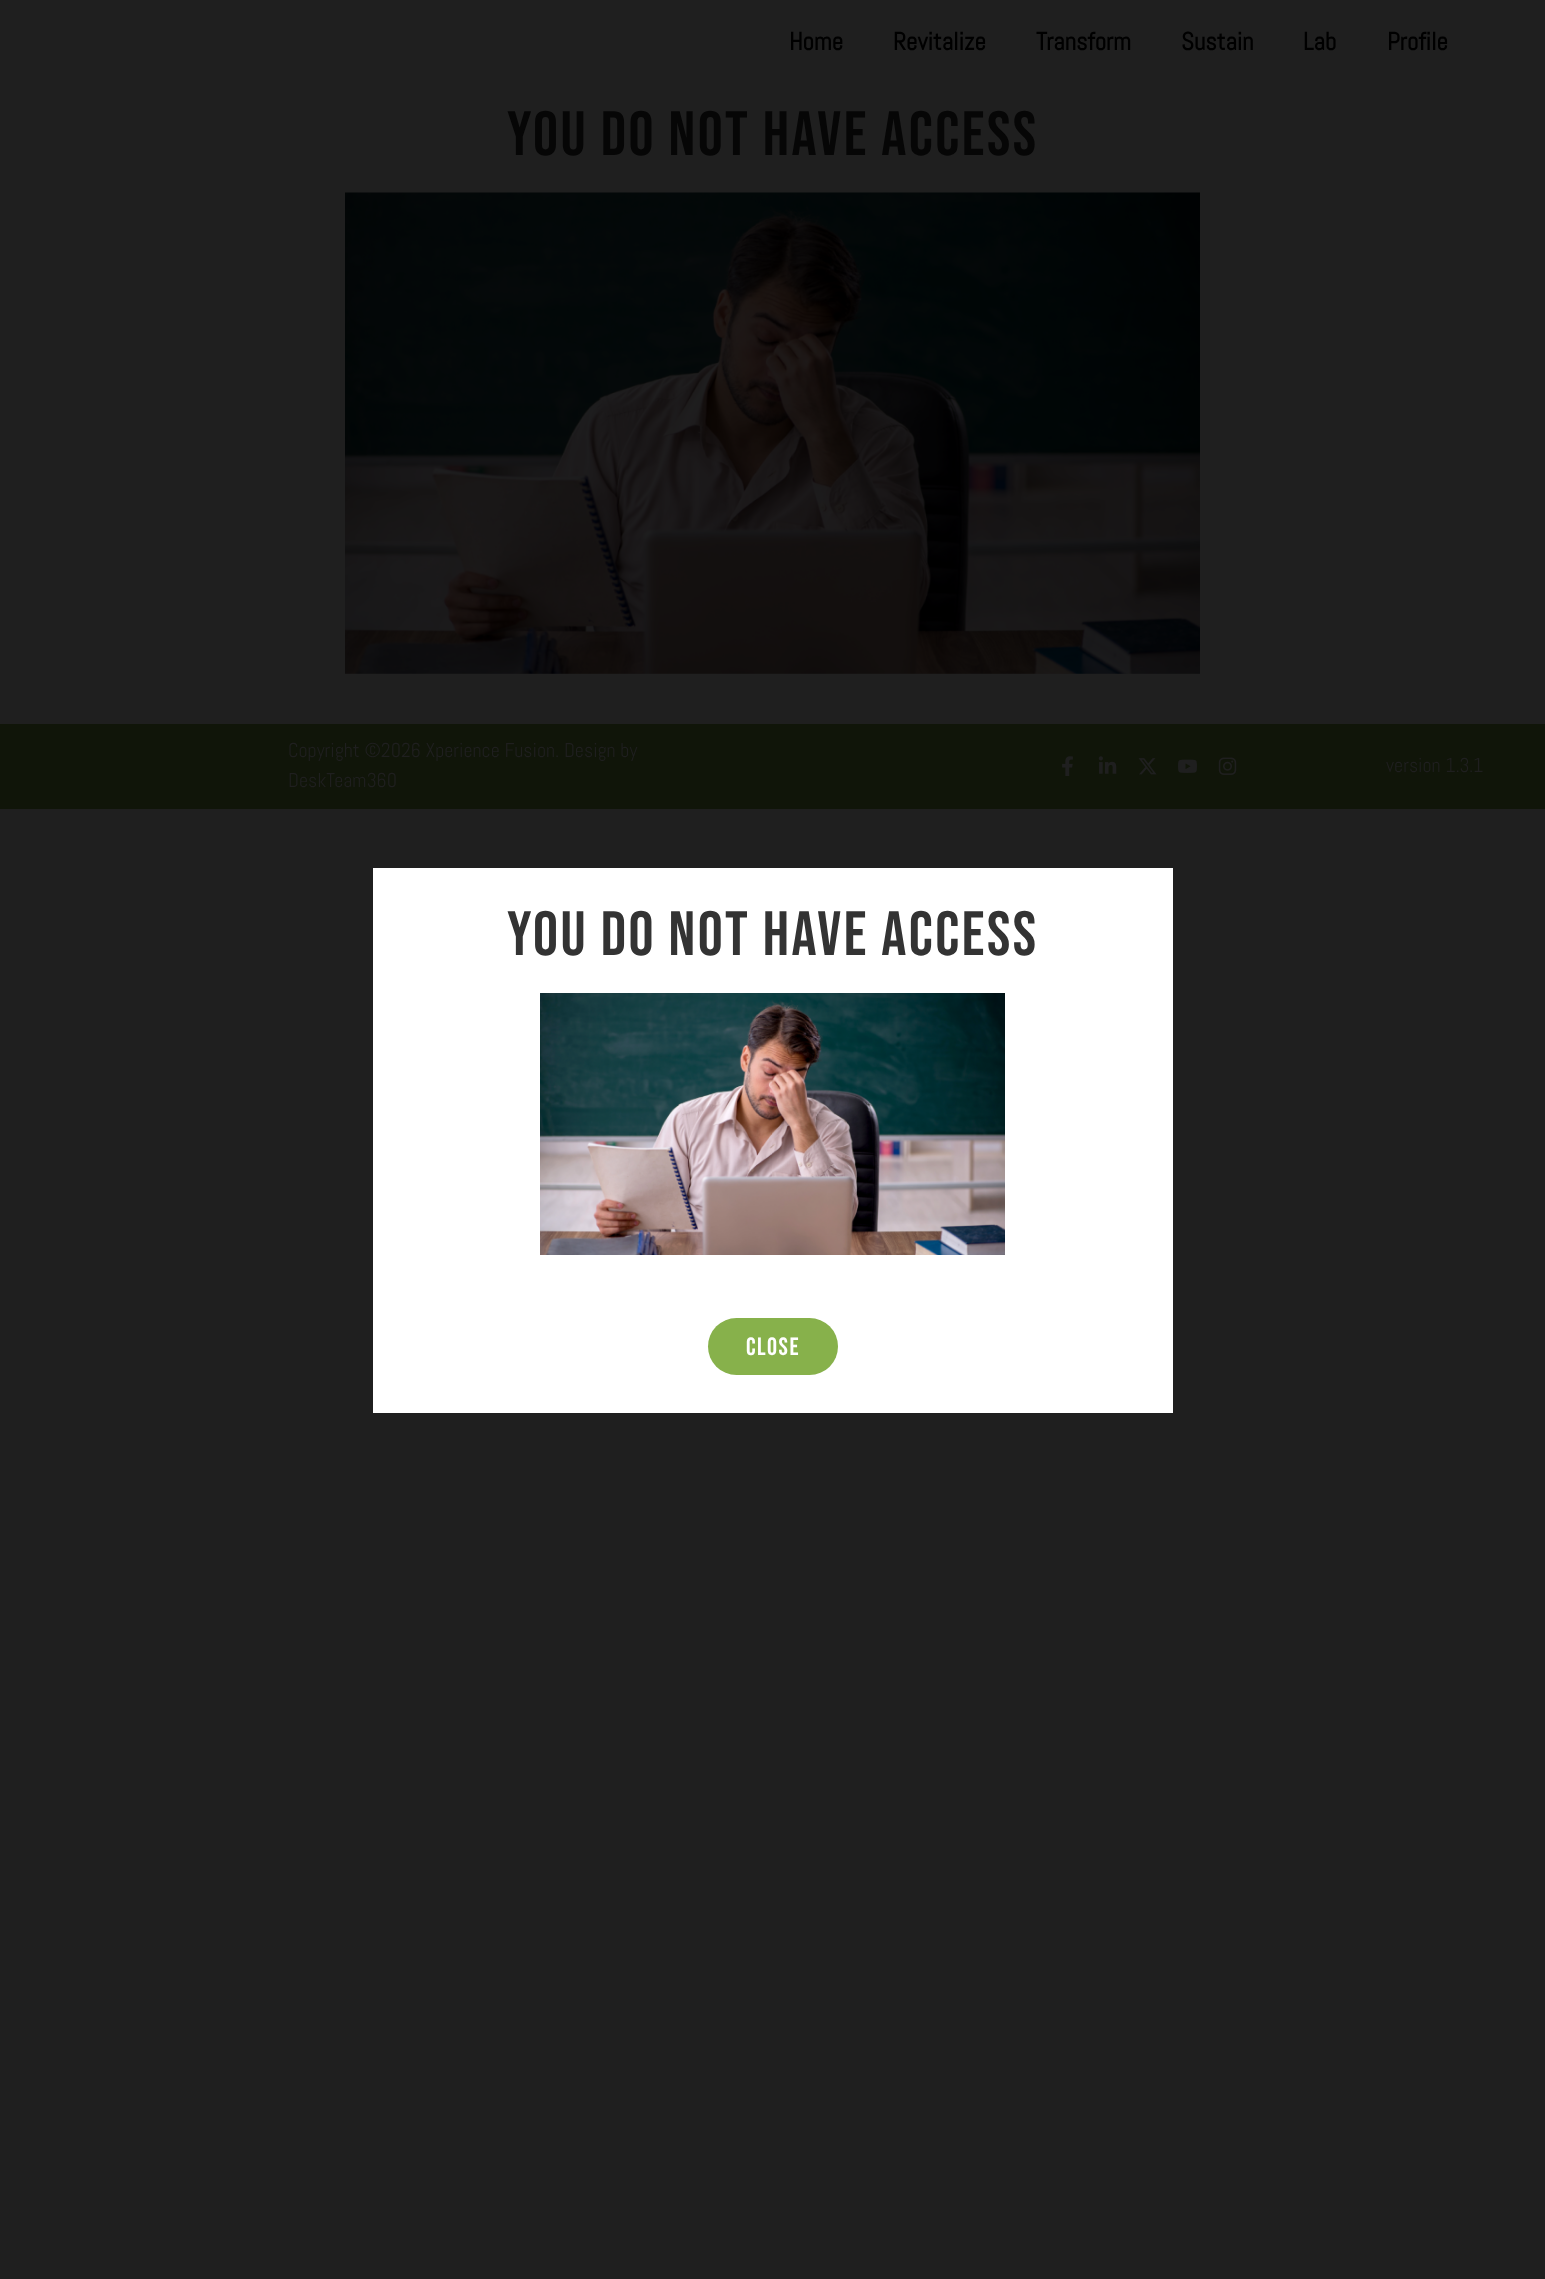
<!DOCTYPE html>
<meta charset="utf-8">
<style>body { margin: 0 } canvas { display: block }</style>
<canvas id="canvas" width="1545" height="2279"></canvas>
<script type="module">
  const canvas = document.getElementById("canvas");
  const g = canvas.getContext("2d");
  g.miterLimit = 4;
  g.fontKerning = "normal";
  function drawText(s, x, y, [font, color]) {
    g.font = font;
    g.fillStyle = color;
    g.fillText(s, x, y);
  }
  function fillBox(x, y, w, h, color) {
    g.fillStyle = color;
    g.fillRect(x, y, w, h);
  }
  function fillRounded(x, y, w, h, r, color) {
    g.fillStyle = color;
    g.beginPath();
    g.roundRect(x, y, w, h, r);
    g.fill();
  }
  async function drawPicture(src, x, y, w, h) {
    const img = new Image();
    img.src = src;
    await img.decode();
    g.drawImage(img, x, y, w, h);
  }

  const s1 = ["bold 25px Abel", "#000000"];
  const s2 = ["62.5px Bebas Neue", "#060606"];
  const s3 = ["20px Abel", "#1F1F1F"];
  const s4 = ["62.5px Bebas Neue", "#333333"];
  const s5 = ["25px Bebas Neue", "#FFFFFF"];

  fillBox(0, 0, 1545, 2279, "#1F1F1F");
  drawText("Home", 789, 50, s1);
  drawText("Revitalize", 893, 50, s1);
  drawText("Transform", 1036, 50, s1);
  drawText("Sustain", 1181, 50, s1);
  drawText("Lab", 1303, 50, s1);
  drawText("Profile", 1387, 50, s1);
  g.letterSpacing = "2.5px";
  drawText("You do not have access", 507, 155, s2);
  await drawPicture("pic1.png", 345, 192, 855, 482);
  fillBox(0, 724, 1545, 85, "#101509");
  g.letterSpacing = "0px";
  drawText("Copyright ©2026 Xperience Fusion. Design by", 288, 757, s3);
  drawText("DeskTeam360", 288, 787, s3);
  await drawPicture("pic2.png", 1062, 756, 11, 20);
  await drawPicture("pic3.png", 1098, 756, 19, 18);
  await drawPicture("pic4.png", 1138, 758, 19, 17);
  await drawPicture("pic5.png", 1178, 759, 19, 14);
  await drawPicture("pic6.png", 1218, 757, 19, 18);
  drawText("version 1.3.1", 1386, 772, s3);
  fillBox(373, 868, 800, 545, "#FFFFFF");
  g.letterSpacing = "2.5px";
  drawText("You do not have access", 507, 955, s4);
  await drawPicture("pic7.png", 540, 993, 465, 262);
  fillRounded(708, 1318, 130, 57, 28.5, "#87B14B");
  g.letterSpacing = "1.5px";
  drawText("Close", 746, 1355, s5);
</script>
